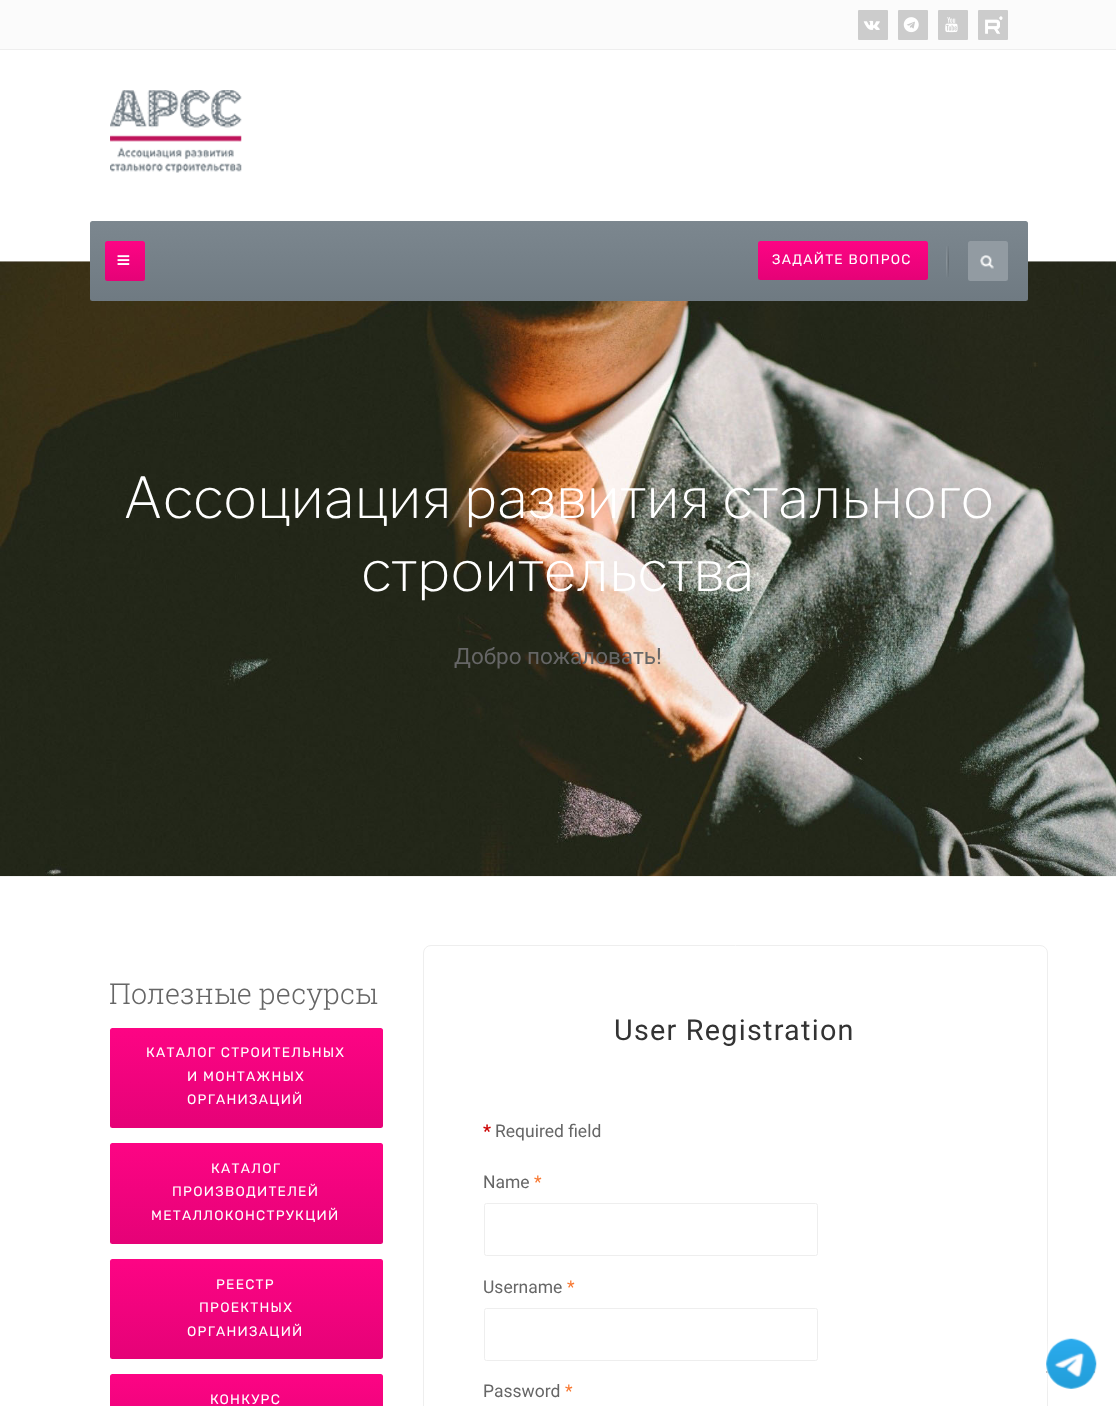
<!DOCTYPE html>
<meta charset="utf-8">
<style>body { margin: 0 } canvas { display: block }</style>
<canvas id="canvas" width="1116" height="1406"></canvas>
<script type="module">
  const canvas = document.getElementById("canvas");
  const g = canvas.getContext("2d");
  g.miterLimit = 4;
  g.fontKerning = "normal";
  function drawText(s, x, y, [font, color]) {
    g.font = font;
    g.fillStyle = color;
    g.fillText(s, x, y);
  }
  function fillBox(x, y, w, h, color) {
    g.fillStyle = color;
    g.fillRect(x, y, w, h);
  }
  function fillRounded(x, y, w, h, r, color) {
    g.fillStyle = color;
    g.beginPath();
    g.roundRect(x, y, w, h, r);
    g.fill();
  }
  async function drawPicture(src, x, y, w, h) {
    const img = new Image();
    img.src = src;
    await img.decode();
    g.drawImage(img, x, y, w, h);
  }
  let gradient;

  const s1 = ["13.75px Rubik", "#FFFFFF"];
  const s2 = ["200 56.25px Libre Franklin", "#FFFFFF"];
  const s3 = ["22.5px Roboto", "#666666"];
  const s4 = ["300 28.75px Roboto Slab", "#666666"];
  const s5 = ["28.75px Roboto", "#333333"];
  const s6 = ["bold 17.5px Roboto", "#CC0000"];
  const s7 = ["17.5px Roboto", "#666666"];
  const s8 = ["17.5px Roboto", "#F87831"];

  fillBox(0, 0, 1116, 1406, "#FFFFFF");
  fillBox(0, 0, 1116, 49, "#FBFBFB");
  fillBox(0, 49, 1116, 1, "#EEEEEE");
  fillRounded(858, 10, 30, 30, 1, "#CCCCCC");
  await drawPicture("pic1.png", 863, 20, 17, 10);
  fillRounded(898, 10, 30, 30, 1, "#CCCCCC");
  await drawPicture("pic2.png", 903, 17, 16, 16);
  fillRounded(938, 10, 30, 30, 1, "#CCCCCC");
  await drawPicture("pic3.png", 945, 17, 13, 16);
  fillRounded(978, 10, 30, 30, 1, "#CCCCCC");
  await drawPicture("pic4.png", 985, 16, 18, 18);
  await drawPicture("pic5.png", 110, 90, 132, 83);
  await drawPicture("pic9.png", 0, 261, 1116, 616);
  gradient = g.createLinearGradient(559, 221, 559, 301);
  gradient.addColorStop(0, "#7C878F");
  gradient.addColorStop(1, "#6F7A82");
  g.fillStyle = gradient;
  g.beginPath();
  g.roundRect(90, 221, 938, 80, 2.5);
  g.fill();
  gradient = g.createLinearGradient(125, 241, 125, 281);
  gradient.addColorStop(0, "#FD0484");
  gradient.addColorStop(1, "#E50277");
  g.fillStyle = gradient;
  g.beginPath();
  g.roundRect(105, 241, 40, 40, 2.5);
  g.fill();
  await drawPicture("pic6.png", 117, 255, 13, 10);
  gradient = g.createLinearGradient(843, 241, 843, 280);
  gradient.addColorStop(0, "#FD0484");
  gradient.addColorStop(1, "#E50277");
  g.fillStyle = gradient;
  g.beginPath();
  g.roundRect(758, 241, 170, 39, 2.5);
  g.fill();
  g.letterSpacing = "1.25px";
  drawText("ЗАДАЙТЕ ВОПРОС", 772, 264, s1);
  await drawPicture("pic7.png", 946, 246, 3, 31);
  fillRounded(968, 241, 40, 40, 2.5, "#929BA2");
  await drawPicture("pic8.png", 980, 255, 14, 14);
  g.letterSpacing = "0px";
  drawText("Ассоциация развития стального", 123, 518, s2);
  drawText("строительства", 361, 591, s2);
  drawText("Добро пожаловать!", 454, 664, s3);
  drawText("Полезные ресурсы", 109, 1004, s4);
  gradient = g.createLinearGradient(246, 1028, 246, 1128);
  gradient.addColorStop(0, "#FD0484");
  gradient.addColorStop(1, "#E50277");
  g.fillStyle = gradient;
  g.beginPath();
  g.roundRect(110, 1028, 273, 100, 2.5);
  g.fill();
  g.letterSpacing = "1.25px";
  drawText("КАТАЛОГ СТРОИТЕЛЬНЫХ", 146, 1057, s1);
  drawText("И МОНТАЖНЫХ", 187, 1081, s1);
  drawText("ОРГАНИЗАЦИЙ", 187, 1104, s1);
  gradient = g.createLinearGradient(246, 1143, 246, 1244);
  gradient.addColorStop(0, "#FD0484");
  gradient.addColorStop(1, "#E50277");
  g.fillStyle = gradient;
  g.beginPath();
  g.roundRect(110, 1143, 273, 101, 2.5);
  g.fill();
  drawText("КАТАЛОГ", 211, 1173, s1);
  drawText("ПРОИЗВОДИТЕЛЕЙ", 172, 1196, s1);
  drawText("МЕТАЛЛОКОНСТРУКЦИЙ", 151, 1220, s1);
  gradient = g.createLinearGradient(246, 1259, 246, 1359);
  gradient.addColorStop(0, "#FD0484");
  gradient.addColorStop(1, "#E50277");
  g.fillStyle = gradient;
  g.beginPath();
  g.roundRect(110, 1259, 273, 100, 2.5);
  g.fill();
  drawText("РЕЕСТР", 216, 1289, s1);
  drawText("ПРОЕКТНЫХ", 199, 1312, s1);
  drawText("ОРГАНИЗАЦИЙ", 187, 1336, s1);
  gradient = g.createLinearGradient(246, 1374, 246, 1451);
  gradient.addColorStop(0, "#FD0484");
  gradient.addColorStop(1, "#E50277");
  g.fillStyle = gradient;
  g.beginPath();
  g.roundRect(110, 1374, 273, 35, 2.5);
  g.fill();
  drawText("КОНКУРС", 210, 1404, s1);
  g.beginPath();
  g.roundRect(423.5, 945.5, 624, 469, 7.5);
  g.strokeStyle = "#EEEEEE";
  g.stroke();
  drawText("User Registration", 614, 1040, s5);
  g.letterSpacing = "0px";
  drawText("*", 483, 1137, s6);
  drawText("Required field", 495, 1137, s7);
  drawText("Name", 483, 1188, s7);
  drawText("*", 534, 1188, s8);
  g.beginPath();
  g.roundRect(484.5, 1203.5, 333, 52, 2);
  g.stroke();
  drawText("Username", 483, 1293, s7);
  drawText("*", 567, 1293, s8);
  g.beginPath();
  g.roundRect(484.5, 1308.5, 333, 52, 2);
  g.stroke();
  drawText("Password", 483, 1397, s7);
  drawText("*", 565, 1397, s8);
  g.beginPath();
  g.moveTo(1046, 1372);
  g.lineTo(1096, 1372);
  g.strokeStyle = "#3B3B3B";
  g.lineWidth = 1.2;
  g.setLineDash([1.25, 1.25]);
  g.stroke();
  g.save();
  g.beginPath();
  g.moveTo(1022, 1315);
  g.lineTo(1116, 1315);
  g.lineTo(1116, 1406);
  g.lineTo(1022, 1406);
  g.closePath();
  g.moveTo(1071, 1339);
  g.bezierCurveTo(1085, 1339, 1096, 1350, 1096, 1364);
  g.bezierCurveTo(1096, 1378, 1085, 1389, 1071, 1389);
  g.bezierCurveTo(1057, 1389, 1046, 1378, 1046, 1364);
  g.bezierCurveTo(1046, 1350, 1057, 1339, 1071, 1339);
  g.closePath();
  g.clip("evenodd");
  g.fillStyle = "#FFFFFF";
  g.filter = "blur(7.5px)";
  g.beginPath();
  g.roundRect(1046, 1339, 50, 50, 25);
  g.fill();
  g.filter = "none";
  g.restore();
  await drawPicture("pic10.png", 1046, 1338, 51, 51);
</script>
